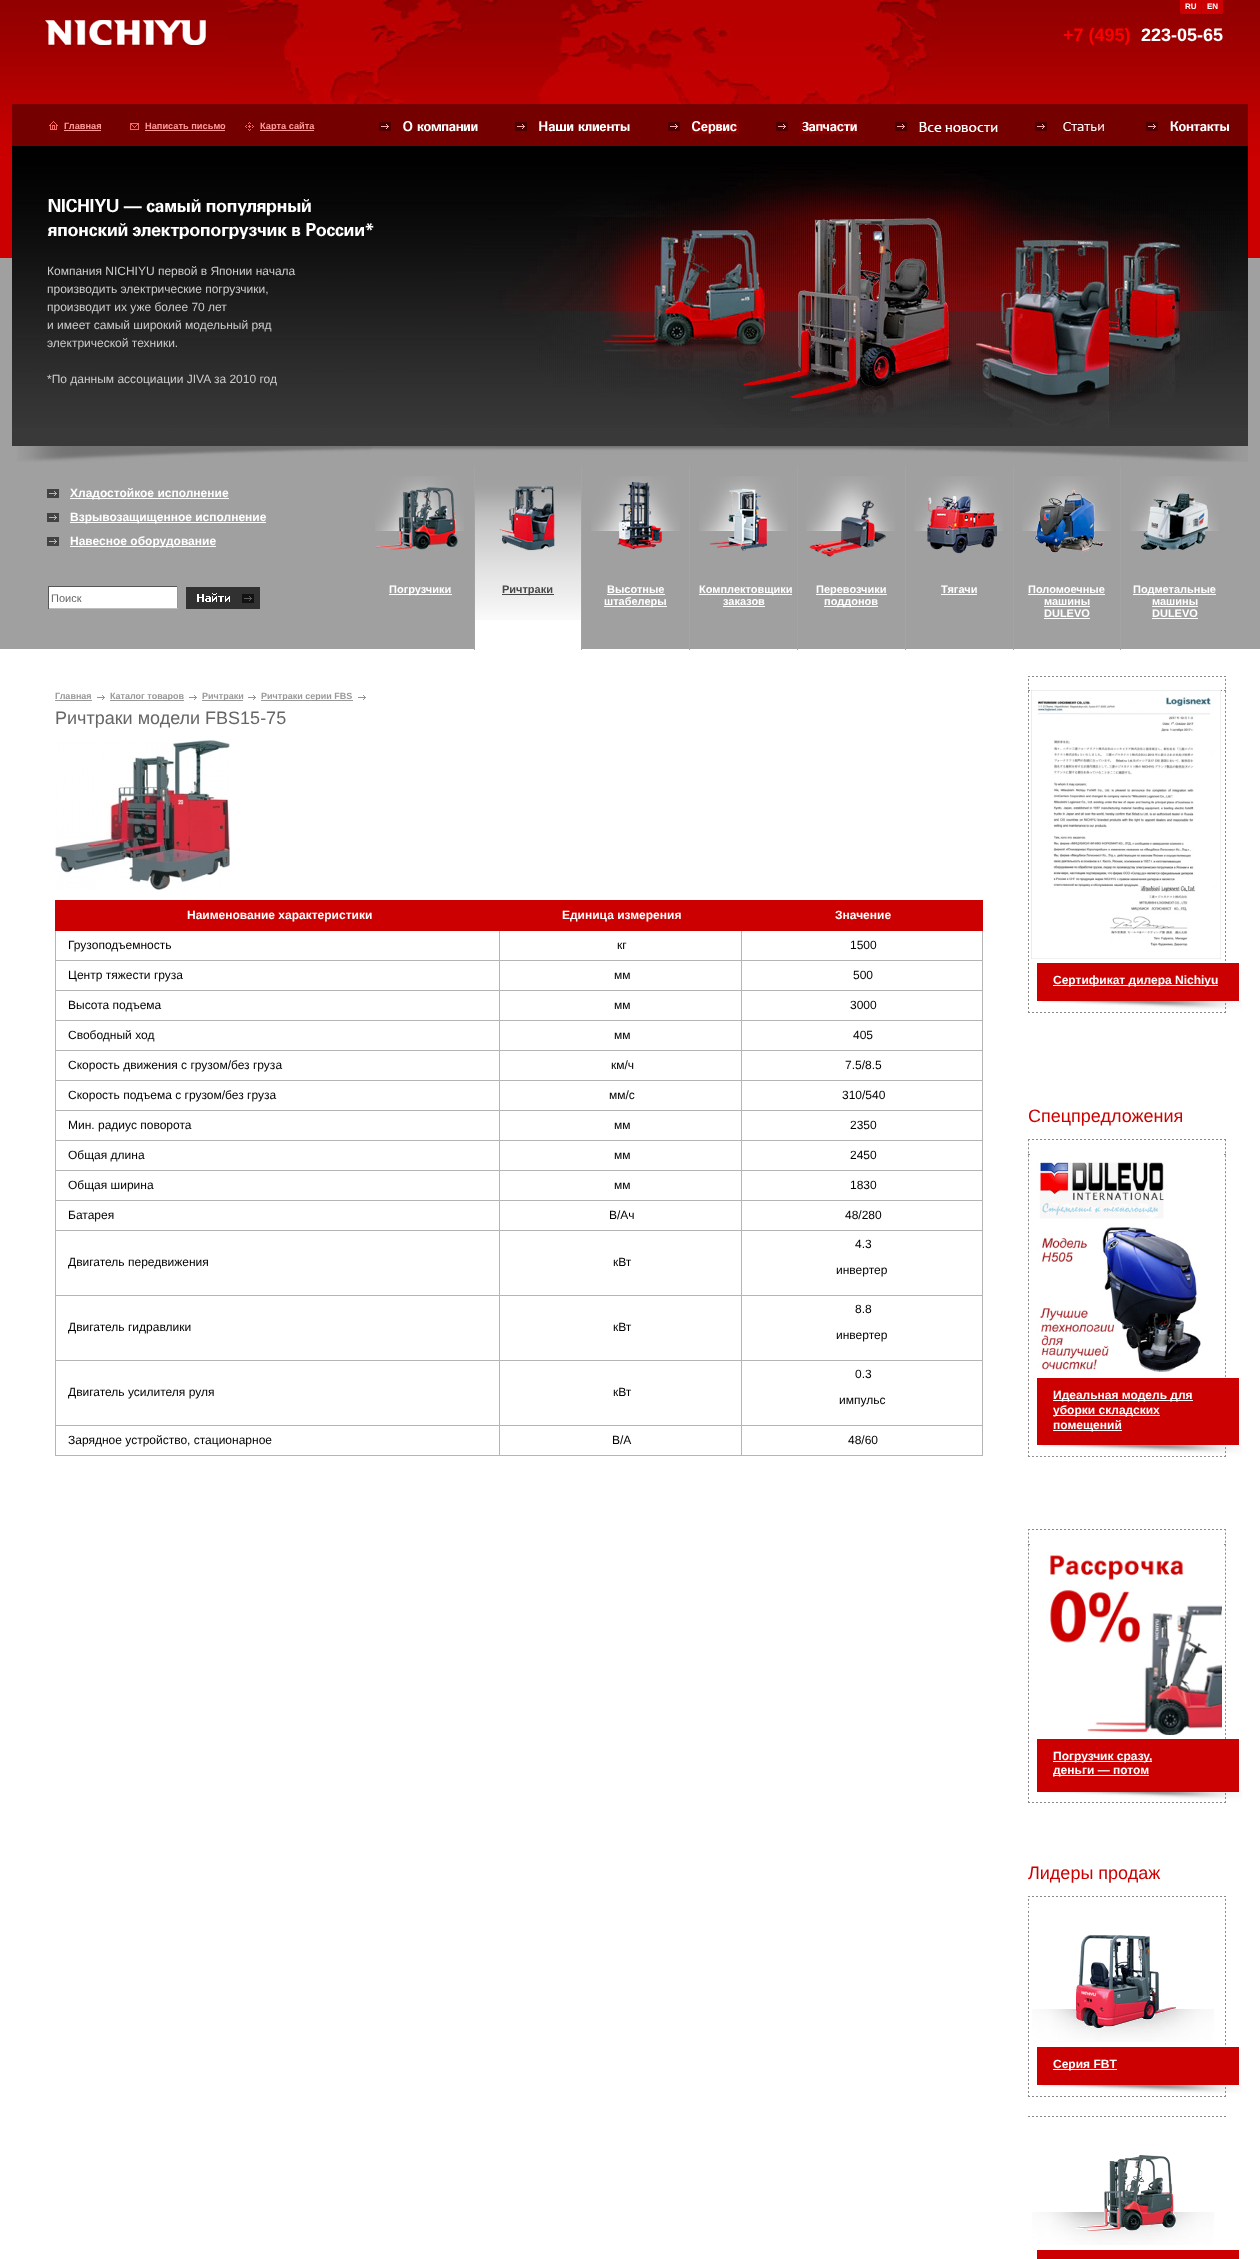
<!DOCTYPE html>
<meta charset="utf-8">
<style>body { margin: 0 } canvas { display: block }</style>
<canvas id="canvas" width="1260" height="2259"></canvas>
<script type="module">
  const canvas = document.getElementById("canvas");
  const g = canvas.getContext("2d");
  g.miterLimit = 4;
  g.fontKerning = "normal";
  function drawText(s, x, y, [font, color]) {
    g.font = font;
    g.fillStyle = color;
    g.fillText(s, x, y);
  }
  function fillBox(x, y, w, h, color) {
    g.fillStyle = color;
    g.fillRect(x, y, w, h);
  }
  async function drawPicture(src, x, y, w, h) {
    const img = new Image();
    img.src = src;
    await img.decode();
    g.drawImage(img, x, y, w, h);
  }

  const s1 = ["bold 8px Liberation Sans", "#FFFFFF"];
  const s2 = ["bold 18px Liberation Sans", "#FF0000"];
  const s3 = ["bold 18px Liberation Sans", "#FFFFFF"];
  const s4 = ["bold 9.25px Liberation Sans", "#FF9999"];
  const s5 = ["12px Liberation Sans", "#CCCCCC"];
  const s6 = ["bold 12px Liberation Sans", "#FFFFFF"];
  const s7 = ["11px Liberation Sans", "#666666"];
  const s8 = ["bold 11px Liberation Sans", "#FFFFFF"];
  const s9 = ["bold 11px Liberation Sans", "#494747"];
  const s10 = ["bold 9px Liberation Sans", "#999999"];
  const s11 = ["18px Liberation Sans", "#666666"];
  const s12 = ["12px Liberation Sans", "#000000"];
  const s13 = ["18px Liberation Sans", "#CC0000"];

  fillBox(0, 0, 1260, 2259, "#FFFFFF");
  fillBox(0, 258, 1260, 391, "#A0A0A0");
  await drawPicture("pic1.png", 0, 0, 1260, 258);
  await drawPicture("pic2.png", 228, 0, 712, 104);
  await drawPicture("pic3.png", 45, 20, 162, 27);
  g.fillStyle = "#CC0000";
  g.beginPath();
  g.roundRect(1180, 0, 22, 14, [0, 0, 0, 2]);
  g.fill();
  fillBox(1201, 0, 1, 14, "#B00000");
  drawText("RU", 1185, 9, s1);
  g.fillStyle = "#CC0000";
  g.beginPath();
  g.roundRect(1202, 0, 21, 14, [0, 0, 2, 0]);
  g.fill();
  drawText("EN", 1207, 9, s1);
  drawText("+7 (495)", 1063, 41, s2);
  drawText("223-05-65", 1141, 41, s3);
  fillBox(12, 104, 1236, 42, "#750000");
  await drawPicture("pic4.png", 49, 121, 9, 9);
  drawText("Главная", 64, 129, s4);
  fillBox(64, 130, 37, 1, "#FF9999");
  await drawPicture("pic5.png", 130, 123, 9, 7);
  drawText("Написать письмо", 145, 129, s4);
  fillBox(145, 130, 80, 1, "#FF9999");
  await drawPicture("pic6.png", 245, 122, 9, 9);
  fillBox(260, 130, 54, 1, "#FF9999");
  drawText("Карта сайта", 260, 129, s4);
  await drawPicture("pic7.png", 379, 122, 12, 9);
  await drawPicture("pic8.png", 403, 121, 75, 11);
  await drawPicture("pic7.png", 515, 122, 12, 9);
  await drawPicture("pic9.png", 539, 121, 91, 11);
  await drawPicture("pic7.png", 668, 122, 12, 9);
  await drawPicture("pic10.png", 692, 121, 47, 13);
  await drawPicture("pic7.png", 776, 122, 12, 9);
  await drawPicture("pic11.png", 800, 121, 57, 13);
  await drawPicture("pic7.png", 895, 122, 12, 9);
  await drawPicture("pic12.png", 919, 122, 79, 10);
  await drawPicture("pic7.png", 1035, 122, 12, 9);
  await drawPicture("pic13.png", 1059, 121, 48, 13);
  await drawPicture("pic7.png", 1146, 122, 12, 9);
  await drawPicture("pic14.png", 1170, 121, 59, 11);
  fillBox(12, 428, 1236, 18, "#393939");
  await drawPicture("pic15.png", 12, 146, 1236, 282);
  await drawPicture("pic16.png", 47, 199, 327, 40);
  drawText("Компания NICHIYU первой в Японии начала", 47, 275, s5);
  drawText("производить электрические погрузчики,", 47, 293, s5);
  drawText("производит их уже более 70 лет", 47, 311, s5);
  drawText("и имеет самый широкий модельный ряд", 47, 329, s5);
  drawText("электрической техники.", 47, 347, s5);
  drawText("*По данным ассоциации JIVA за 2010 год", 47, 383, s5);
  await drawPicture("pic17.png", 372, 446, 876, 16);
  await drawPicture("pic18.png", 17, 446, 355, 16);
  await drawPicture("pic19.png", 47, 489, 12, 9);
  fillBox(70, 498, 159, 1, "#FFFEFE");
  drawText("Хладостойкое исполнение", 70, 497, s6);
  await drawPicture("pic19.png", 47, 513, 12, 9);
  fillBox(70, 522, 196, 1, "#FFFEFE");
  drawText("Взрывозащищенное исполнение", 70, 521, s6);
  await drawPicture("pic19.png", 47, 537, 12, 9);
  fillBox(70, 546, 146, 1, "#FFFEFE");
  drawText("Навесное оборудование", 70, 545, s6);
  fillBox(49, 587, 128, 21, "#FFFFFF");
  fillBox(48, 586, 130, 1, "#565656");
  fillBox(177, 586, 1, 23, "#949494");
  fillBox(48, 608, 130, 1, "#BDBDBD");
  fillBox(48, 586, 1, 23, "#565656");
  drawText("Поиск", 51, 602, s7);
  await drawPicture("pic20.png", 186, 587, 74, 22);
  fillBox(474, 466, 1, 184, "#A4A4A4");
  await drawPicture("pic21.png", 375, 476, 89, 55);
  await drawPicture("pic22.png", 376, 487, 82, 63);
  fillBox(389, 594, 63, 1, "#FFFEFE");
  drawText("Погрузчики", 389, 593, s8);
  fillBox(475, 620, 106, 29, "#FFFFFF");
  await drawPicture("pic23.png", 475, 466, 106, 154);
  fillBox(581, 466, 1, 184, "#A4A4A4");
  await drawPicture("pic24.png", 499, 486, 56, 65);
  fillBox(502, 594, 52, 1, "#494747");
  drawText("Ричтраки", 502, 593, s9);
  fillBox(689, 466, 1, 184, "#A4A4A4");
  await drawPicture("pic21.png", 591, 476, 89, 55);
  await drawPicture("pic25.png", 617, 482, 45, 68);
  drawText("Высотные", 607, 593, s8);
  fillBox(607, 594, 58, 1, "#FFFEFE");
  fillBox(604, 606, 63, 1, "#FFFEFE");
  drawText("штабелеры", 604, 605, s8);
  fillBox(797, 466, 1, 184, "#A4A4A4");
  await drawPicture("pic21.png", 699, 476, 89, 55);
  await drawPicture("pic26.png", 710, 488, 57, 63);
  fillBox(699, 594, 93, 1, "#FFFEFE");
  drawText("Комплектовщики", 699, 593, s8);
  drawText("заказов", 723, 605, s8);
  fillBox(723, 606, 42, 1, "#FFFEFE");
  fillBox(905, 466, 1, 184, "#A4A4A4");
  await drawPicture("pic21.png", 806, 476, 89, 55);
  await drawPicture("pic27.png", 809, 500, 77, 57);
  fillBox(816, 594, 71, 1, "#FFFEFE");
  drawText("Перевозчики", 816, 593, s8);
  fillBox(824, 606, 54, 1, "#FFFEFE");
  drawText("поддонов", 824, 605, s8);
  fillBox(1013, 466, 1, 184, "#A4A4A4");
  await drawPicture("pic21.png", 914, 476, 89, 55);
  await drawPicture("pic28.png", 927, 496, 70, 58);
  drawText("Тягачи", 941, 593, s8);
  fillBox(941, 594, 36, 1, "#FFFEFE");
  fillBox(1120, 466, 1, 184, "#A4A4A4");
  await drawPicture("pic21.png", 1022, 476, 89, 55);
  await drawPicture("pic29.png", 1034, 489, 70, 64);
  drawText("Поломоечные", 1028, 593, s8);
  fillBox(1028, 594, 77, 1, "#FFFEFE");
  drawText("машины", 1044, 605, s8);
  fillBox(1044, 606, 46, 1, "#FFFEFE");
  drawText("DULEVO", 1044, 617, s8);
  fillBox(1044, 618, 46, 1, "#FFFEFE");
  await drawPicture("pic21.png", 1130, 476, 89, 55);
  await drawPicture("pic30.png", 1140, 493, 69, 58);
  fillBox(1133, 594, 83, 1, "#FFFEFE");
  drawText("Подметальные", 1133, 593, s8);
  drawText("машины", 1152, 605, s8);
  fillBox(1152, 606, 46, 1, "#FFFEFE");
  drawText("DULEVO", 1152, 617, s8);
  fillBox(1152, 618, 46, 1, "#FFFEFE");
  await drawPicture("pic31.png", 97, 695, 8, 5);
  drawText("Главная", 55, 699, s10);
  fillBox(55, 700, 37, 1, "#999999");
  await drawPicture("pic31.png", 189, 695, 8, 5);
  fillBox(110, 700, 74, 1, "#999999");
  drawText("Каталог товаров", 110, 699, s10);
  await drawPicture("pic31.png", 248, 695, 8, 5);
  fillBox(202, 700, 41, 1, "#999999");
  drawText("Ричтраки", 202, 699, s10);
  await drawPicture("pic31.png", 358, 695, 8, 5);
  fillBox(261, 700, 92, 1, "#999999");
  drawText("Ричтраки серии FBS", 261, 699, s10);
  drawText("Ричтраки модели FBS15-75", 55, 724, s11);
  await drawPicture("pic32.png", 55, 740, 175, 150);
  fillBox(56, 901, 926, 29, "#CC0000");
  fillBox(55, 900, 928, 1, "#CC0000");
  fillBox(741, 960, 242, 1, "#B5B5B5");
  fillBox(741, 990, 242, 1, "#B5B5B5");
  fillBox(741, 1020, 242, 1, "#B5B5B5");
  fillBox(741, 1050, 242, 1, "#B5B5B5");
  fillBox(741, 1080, 242, 1, "#B5B5B5");
  fillBox(741, 1110, 242, 1, "#B5B5B5");
  fillBox(741, 1140, 242, 1, "#B5B5B5");
  fillBox(741, 1170, 242, 1, "#B5B5B5");
  fillBox(741, 1200, 242, 1, "#B5B5B5");
  fillBox(741, 1230, 242, 1, "#B5B5B5");
  fillBox(741, 1295, 242, 1, "#B5B5B5");
  fillBox(741, 1360, 242, 1, "#B5B5B5");
  fillBox(741, 1425, 242, 1, "#B5B5B5");
  fillBox(982, 1425, 1, 31, "#B5B5B5");
  fillBox(982, 1360, 1, 66, "#B5B5B5");
  fillBox(982, 1295, 1, 66, "#B5B5B5");
  fillBox(982, 1230, 1, 66, "#B5B5B5");
  fillBox(982, 1200, 1, 31, "#B5B5B5");
  fillBox(982, 1170, 1, 31, "#B5B5B5");
  fillBox(982, 1140, 1, 31, "#B5B5B5");
  fillBox(982, 1110, 1, 31, "#B5B5B5");
  fillBox(982, 1080, 1, 31, "#B5B5B5");
  fillBox(982, 1050, 1, 31, "#B5B5B5");
  fillBox(982, 1020, 1, 31, "#B5B5B5");
  fillBox(982, 990, 1, 31, "#B5B5B5");
  fillBox(982, 930, 1, 61, "#B5B5B5");
  fillBox(982, 900, 1, 31, "#CC0000");
  fillBox(741, 1455, 242, 1, "#B5B5B5");
  fillBox(741, 1425, 1, 31, "#B5B5B5");
  fillBox(499, 1425, 243, 1, "#B5B5B5");
  fillBox(741, 1360, 1, 66, "#B5B5B5");
  fillBox(499, 1360, 243, 1, "#B5B5B5");
  fillBox(741, 1295, 1, 66, "#B5B5B5");
  fillBox(499, 1295, 243, 1, "#B5B5B5");
  fillBox(741, 1230, 1, 66, "#B5B5B5");
  fillBox(499, 1230, 243, 1, "#B5B5B5");
  fillBox(741, 1200, 1, 31, "#B5B5B5");
  fillBox(499, 1200, 243, 1, "#B5B5B5");
  fillBox(741, 1170, 1, 31, "#B5B5B5");
  fillBox(499, 1170, 243, 1, "#B5B5B5");
  fillBox(741, 1140, 1, 31, "#B5B5B5");
  fillBox(499, 1140, 243, 1, "#B5B5B5");
  fillBox(741, 1110, 1, 31, "#B5B5B5");
  fillBox(499, 1110, 243, 1, "#B5B5B5");
  fillBox(741, 1080, 1, 31, "#B5B5B5");
  fillBox(499, 1080, 243, 1, "#B5B5B5");
  fillBox(741, 1050, 1, 31, "#B5B5B5");
  fillBox(499, 1050, 243, 1, "#B5B5B5");
  fillBox(741, 1020, 1, 31, "#B5B5B5");
  fillBox(499, 1020, 243, 1, "#B5B5B5");
  fillBox(741, 990, 1, 31, "#B5B5B5");
  fillBox(499, 990, 243, 1, "#B5B5B5");
  fillBox(741, 960, 1, 31, "#B5B5B5");
  fillBox(499, 960, 243, 1, "#B5B5B5");
  fillBox(499, 1455, 243, 1, "#B5B5B5");
  fillBox(499, 1425, 1, 31, "#B5B5B5");
  fillBox(55, 1425, 445, 1, "#B5B5B5");
  fillBox(499, 1360, 1, 66, "#B5B5B5");
  fillBox(55, 1360, 445, 1, "#B5B5B5");
  fillBox(499, 1295, 1, 66, "#B5B5B5");
  fillBox(55, 1295, 445, 1, "#B5B5B5");
  fillBox(499, 1230, 1, 66, "#B5B5B5");
  fillBox(55, 1230, 445, 1, "#B5B5B5");
  fillBox(499, 1200, 1, 31, "#B5B5B5");
  fillBox(55, 1200, 445, 1, "#B5B5B5");
  fillBox(499, 1170, 1, 31, "#B5B5B5");
  fillBox(55, 1170, 445, 1, "#B5B5B5");
  fillBox(499, 1140, 1, 31, "#B5B5B5");
  fillBox(55, 1140, 445, 1, "#B5B5B5");
  fillBox(499, 1110, 1, 31, "#B5B5B5");
  fillBox(55, 1110, 445, 1, "#B5B5B5");
  fillBox(499, 1080, 1, 31, "#B5B5B5");
  fillBox(55, 1080, 445, 1, "#B5B5B5");
  fillBox(499, 1050, 1, 31, "#B5B5B5");
  fillBox(55, 1050, 445, 1, "#B5B5B5");
  fillBox(499, 1020, 1, 31, "#B5B5B5");
  fillBox(55, 1020, 445, 1, "#B5B5B5");
  fillBox(499, 990, 1, 31, "#B5B5B5");
  fillBox(55, 990, 445, 1, "#B5B5B5");
  fillBox(499, 960, 1, 31, "#B5B5B5");
  fillBox(55, 960, 445, 1, "#B5B5B5");
  fillBox(499, 930, 1, 31, "#B5B5B5");
  fillBox(741, 930, 1, 31, "#B5B5B5");
  fillBox(55, 1455, 445, 1, "#B5B5B5");
  fillBox(55, 1425, 1, 31, "#B5B5B5");
  fillBox(55, 1360, 1, 66, "#B5B5B5");
  fillBox(55, 1295, 1, 66, "#B5B5B5");
  fillBox(55, 1230, 1, 66, "#B5B5B5");
  fillBox(55, 1200, 1, 31, "#B5B5B5");
  fillBox(55, 1170, 1, 31, "#B5B5B5");
  fillBox(55, 1140, 1, 31, "#B5B5B5");
  fillBox(55, 1110, 1, 31, "#B5B5B5");
  fillBox(55, 1080, 1, 31, "#B5B5B5");
  fillBox(55, 1050, 1, 31, "#B5B5B5");
  fillBox(55, 1020, 1, 31, "#B5B5B5");
  fillBox(55, 990, 1, 31, "#B5B5B5");
  fillBox(55, 930, 1, 61, "#B5B5B5");
  fillBox(55, 930, 928, 1, "#CC0000");
  fillBox(55, 900, 1, 31, "#CC0000");
  drawText("Наименование характеристики", 187, 919, s6);
  drawText("Единица измерения", 562, 919, s6);
  drawText("Значение", 835, 919, s6);
  drawText("Грузоподъемность", 68, 949, s12);
  drawText("кг", 617, 949, s12);
  drawText("1500", 850, 949, s12);
  drawText("Центр тяжести груза", 68, 979, s12);
  drawText("мм", 614, 979, s12);
  drawText("500", 853, 979, s12);
  drawText("Высота подъема", 68, 1009, s12);
  drawText("мм", 614, 1009, s12);
  drawText("3000", 850, 1009, s12);
  drawText("Свободный ход", 68, 1039, s12);
  drawText("мм", 614, 1039, s12);
  drawText("405", 853, 1039, s12);
  drawText("Скорость движения с грузом/без груза", 68, 1069, s12);
  drawText("км/ч", 611, 1069, s12);
  drawText("7.5/8.5", 845, 1069, s12);
  drawText("Скорость подъема с грузом/без груза", 68, 1099, s12);
  drawText("мм/с", 609, 1099, s12);
  drawText("310/540", 842, 1099, s12);
  drawText("Мин. радиус поворота", 68, 1129, s12);
  drawText("мм", 614, 1129, s12);
  drawText("2350", 850, 1129, s12);
  drawText("Общая длина", 68, 1159, s12);
  drawText("мм", 614, 1159, s12);
  drawText("2450", 850, 1159, s12);
  drawText("Общая ширина", 68, 1189, s12);
  drawText("мм", 614, 1189, s12);
  drawText("1830", 850, 1189, s12);
  drawText("Батарея", 68, 1219, s12);
  drawText("В/Ач", 609, 1219, s12);
  drawText("48/280", 845, 1219, s12);
  drawText("Двигатель передвижения", 68, 1266, s12);
  drawText("кВт", 613, 1266, s12);
  drawText("4.3", 855, 1248, s12);
  drawText("инвертер", 836, 1274, s12);
  drawText("Двигатель гидравлики", 68, 1331, s12);
  drawText("кВт", 613, 1331, s12);
  drawText("8.8", 855, 1313, s12);
  drawText("инвертер", 836, 1339, s12);
  drawText("Двигатель усилителя руля", 68, 1396, s12);
  drawText("кВт", 613, 1396, s12);
  drawText("0.3", 855, 1378, s12);
  drawText("импульс", 839, 1404, s12);
  drawText("Зарядное устройство, стационарное", 68, 1444, s12);
  drawText("В/А", 612, 1444, s12);
  drawText("48/60", 848, 1444, s12);
  await drawPicture("pic33.png", 1028, 676, 214, 337);
  await drawPicture("pic34.png", 1028, 676, 198, 1);
  await drawPicture("pic34.png", 1028, 690, 198, 1);
  await drawPicture("pic35.png", 1031, 690, 190, 269);
  fillBox(1037, 963, 202, 38, "#CC0000");
  fillBox(1053, 985, 165, 1, "#FFFFFF");
  drawText("Сертификат дилера Nichiyu", 1053, 984, s6);
  drawText("Спецпредложения", 1028, 1122, s13);
  await drawPicture("pic36.png", 1028, 1139, 214, 318);
  await drawPicture("pic34.png", 1028, 1139, 198, 1);
  await drawPicture("pic34.png", 1028, 1154, 198, 1);
  await drawPicture("pic37.png", 1032, 1154, 190, 218);
  fillBox(1037, 1378, 202, 67, "#CC0000");
  fillBox(1053, 1400, 140, 1, "#FFFFFF");
  drawText("Идеальная модель для", 1053, 1399, s6);
  fillBox(1053, 1415, 107, 1, "#FFFFFF");
  drawText("уборки складских", 1053, 1414, s6);
  fillBox(1053, 1430, 69, 1, "#FFFFFF");
  drawText("помещений", 1053, 1429, s6);
  await drawPicture("pic38.png", 1028, 1529, 214, 274);
  await drawPicture("pic39.png", 1029, 1529, 196, 1);
  await drawPicture("pic34.png", 1028, 1544, 198, 1);
  await drawPicture("pic40.png", 1032, 1544, 190, 191);
  fillBox(1037, 1739, 202, 53, "#CC0000");
  fillBox(1053, 1761, 99, 1, "#FFFFFF");
  drawText("Погрузчик сразу,", 1053, 1760, s6);
  fillBox(1053, 1775, 96, 1, "#FFFFFF");
  drawText("деньги — потом", 1053, 1774, s6);
  drawText("Лидеры продаж", 1028, 1879, s13);
  await drawPicture("pic41.png", 1028, 1896, 214, 201);
  await drawPicture("pic34.png", 1028, 1896, 198, 1);
  fillBox(1028, 1908, 3, 1, "#FFFFFF");
  await drawPicture("pic42.png", 1032, 2009, 182, 33);
  await drawPicture("pic43.png", 1076, 1935, 100, 93);
  fillBox(1037, 2047, 202, 38, "#CC0000");
  fillBox(1053, 2069, 64, 1, "#FFFFFF");
  drawText("Серия FBT", 1053, 2068, s6);
  await drawPicture("pic34.png", 1028, 2116, 198, 1);
  await drawPicture("pic42.png", 1032, 2212, 182, 33);
  await drawPicture("pic44.png", 1076, 2155, 100, 76);
  fillBox(1037, 2250, 202, 9, "#CC0000");
</script>
